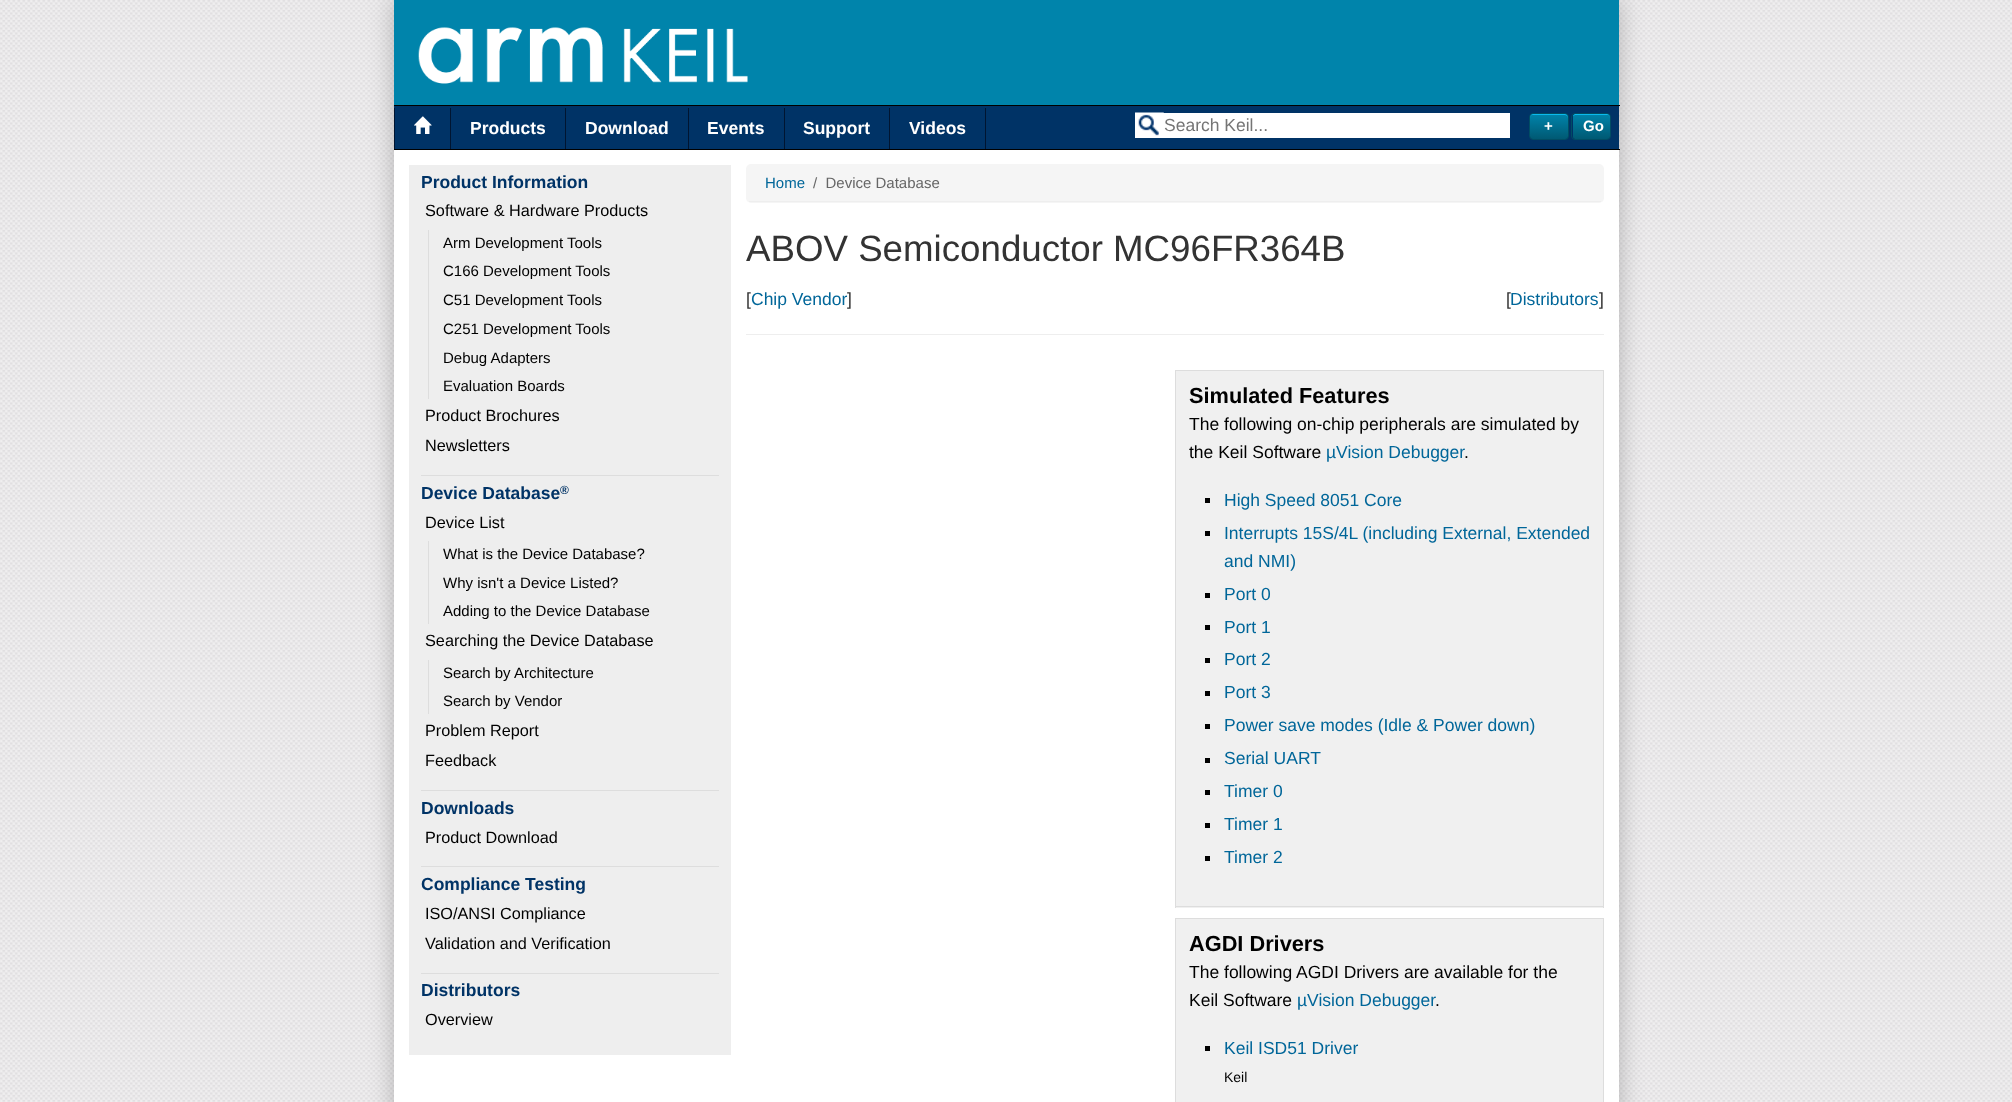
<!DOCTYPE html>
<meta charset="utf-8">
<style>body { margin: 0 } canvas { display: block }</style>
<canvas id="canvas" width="2012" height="1102"></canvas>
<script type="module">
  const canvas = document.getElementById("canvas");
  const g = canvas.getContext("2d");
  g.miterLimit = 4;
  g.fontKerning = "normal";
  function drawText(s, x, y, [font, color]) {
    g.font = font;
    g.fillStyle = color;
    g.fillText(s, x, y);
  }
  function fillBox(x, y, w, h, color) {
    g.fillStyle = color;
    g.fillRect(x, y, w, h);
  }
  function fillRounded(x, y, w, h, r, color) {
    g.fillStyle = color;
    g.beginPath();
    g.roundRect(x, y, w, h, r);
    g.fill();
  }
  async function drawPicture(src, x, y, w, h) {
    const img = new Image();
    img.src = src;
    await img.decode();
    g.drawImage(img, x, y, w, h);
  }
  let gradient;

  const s1 = ["17.5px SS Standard", "#FFFFFF"];
  const s2 = ["bold 17.5px Liberation Sans", "#FFFFFF"];
  const s3 = ["17.5px Liberation Sans", "#757575"];
  const s4 = ["bold 15px Liberation Sans", "#FFFFFF"];
  const s5 = ["bold 17.5px Liberation Sans", "#003366"];
  const s6 = ["16.25px Liberation Sans", "#000000"];
  const s7 = ["15px Liberation Sans", "#000000"];
  const s8 = ["bold 12px Liberation Sans", "#003366"];
  const s9 = ["15px Liberation Sans", "#006699"];
  const s10 = ["15px Liberation Sans", "#666666"];
  const s11 = ["36.7px Liberation Sans", "#333333"];
  const s12 = ["17.5px Liberation Sans", "#333333"];
  const s13 = ["17.5px Liberation Sans", "#006699"];
  const s14 = ["bold 21.75px Liberation Sans", "#000000"];
  const s15 = ["17.5px Liberation Sans", "#000000"];
  const s16 = ["14px Liberation Sans", "#000000"];

  fillBox(0, 0, 2012, 1102, "#FFFFFF");
  await drawPicture("pic1.png", 0, 0, 2012, 1102);
  g.fillStyle = "rgba(50, 50, 50, 0.3)";
  g.filter = "blur(12.5px)";
  g.beginPath();
  g.rect(394, 0, 1225, 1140);
  g.fill();
  g.filter = "none";
  fillBox(394, 150, 1225, 952, "#FFFFFF");
  fillBox(394, 0, 1225, 105, "#0084AB");
  await drawPicture("pic2.png", 418, 27, 330, 57);
  fillBox(394, 106, 1225, 43, "#003366");
  fillBox(450, 108, 1, 41, "#001531");
  fillBox(394, 108, 1, 41, "#001531");
  drawText("⌂", 414, 134, s1);
  fillBox(565, 108, 1, 41, "#001531");
  drawText("Products", 470, 134, s2);
  fillBox(688, 108, 1, 41, "#001531");
  drawText("Download", 585, 134, s2);
  fillBox(784, 108, 1, 41, "#001531");
  drawText("Events", 707, 134, s2);
  fillBox(889, 108, 1, 41, "#001531");
  drawText("Support", 803, 134, s2);
  fillBox(985, 108, 1, 41, "#001531");
  drawText("Videos", 909, 134, s2);
  fillBox(394, 105, 1226, 1, "#000000");
  fillBox(1135, 113, 375, 25, "#FFFFFF");
  await drawPicture("pic3.png", 1135, 112, 29, 24);
  drawText("Search Keil...", 1164, 131, s3);
  gradient = g.createLinearGradient(1549, 114, 1549, 139);
  gradient.addColorStop(0, "#0084AB");
  gradient.addColorStop(1, "#005973");
  g.fillStyle = gradient;
  g.beginPath();
  g.roundRect(1530, 114, 38, 25, 2.5);
  g.fill();
  g.fillStyle = "#0ABAEE";
  g.beginPath();
  g.moveTo(1532, 115);
  g.lineTo(1565, 115);
  g.bezierCurveTo(1566, 115, 1568, 116, 1568, 118);
  g.bezierCurveTo(1568, 112.5, 1565, 114, 1560, 114);
  g.lineTo(1538, 114);
  g.bezierCurveTo(1533, 114, 1530, 112.5, 1530, 118);
  g.bezierCurveTo(1530, 116, 1531, 115, 1532, 115);
  g.closePath();
  g.fill();
  g.beginPath();
  g.roundRect(1529.5, 113.5, 39, 26, 3.5);
  g.strokeStyle = "#004D64";
  g.stroke();
  drawText("+", 1544, 131, s4);
  gradient = g.createLinearGradient(1591, 114, 1591, 139);
  gradient.addColorStop(0, "#0084AB");
  gradient.addColorStop(1, "#005973");
  g.fillStyle = gradient;
  g.beginPath();
  g.roundRect(1573, 114, 37, 25, 2.5);
  g.fill();
  g.fillStyle = "#0ABAEE";
  g.beginPath();
  g.moveTo(1575, 115);
  g.lineTo(1608, 115);
  g.bezierCurveTo(1609, 115, 1610, 116, 1610, 118);
  g.lineTo(1610, 116.5);
  g.bezierCurveTo(1610, 115, 1609, 114, 1607.5, 114);
  g.lineTo(1575.5, 114);
  g.bezierCurveTo(1574.5, 114, 1573.5, 114.5, 1573, 116);
  g.closePath();
  g.fill();
  g.beginPath();
  g.roundRect(1571.5, 113.5, 39, 26, 3.5);
  g.stroke();
  drawText("Go", 1583, 131, s4);
  fillBox(409, 165, 322, 890, "#EEEEEE");
  drawText("Product Information", 421, 188, s5);
  drawText("Software & Hardware Products", 425, 216, s6);
  fillBox(428, 230, 1, 169, "#DDDDDD");
  drawText("Arm Development Tools", 443, 248, s7);
  drawText("C166 Development Tools", 443, 276, s7);
  drawText("C51 Development Tools", 443, 305, s7);
  drawText("C251 Development Tools", 443, 334, s7);
  drawText("Debug Adapters", 443, 363, s7);
  drawText("Evaluation Boards", 443, 391, s7);
  drawText("Product Brochures", 425, 421, s6);
  drawText("Newsletters", 425, 451, s6);
  fillBox(421, 475, 298, 1, "#DDDDDD");
  drawText("Device Database", 421, 499, s5);
  drawText("®", 560, 494, s8);
  drawText("Device List", 425, 528, s6);
  fillBox(428, 541, 1, 83, "#DDDDDD");
  drawText("What is the Device Database?", 443, 559, s7);
  drawText("Why isn't a Device Listed?", 443, 588, s7);
  drawText("Adding to the Device Database", 443, 616, s7);
  drawText("Searching the Device Database", 425, 646, s6);
  fillBox(428, 660, 1, 54, "#DDDDDD");
  drawText("Search by Architecture", 443, 678, s7);
  drawText("Search by Vendor", 443, 706, s7);
  drawText("Problem Report", 425, 736, s6);
  drawText("Feedback", 425, 766, s6);
  fillBox(421, 790, 298, 1, "#DDDDDD");
  drawText("Downloads", 421, 814, s5);
  drawText("Product Download", 425, 843, s6);
  fillBox(421, 866, 298, 1, "#DDDDDD");
  drawText("Compliance Testing", 421, 890, s5);
  drawText("ISO/ANSI Compliance", 425, 919, s6);
  drawText("Validation and Verification", 425, 949, s6);
  fillBox(421, 973, 298, 1, "#DDDDDD");
  drawText("Distributors", 421, 996, s5);
  drawText("Overview", 425, 1025, s6);
  fillBox(394, 149, 1226, 1, "#000000");
  fillRounded(746, 164, 858, 39, 5, "#F5F5F5");
  fillBox(749, 201, 852, 1, "#EEEEEE");
  drawText("Home", 765, 188, s9);
  drawText("/  Device Database", 813, 188, s10);
  drawText("ABOV Semiconductor MC96FR364B", 746, 261, s11);
  drawText("[", 746, 305, s12);
  drawText("Chip Vendor", 751, 305, s13);
  drawText("]", 847, 305, s12);
  drawText("[", 1506, 305, s12);
  drawText("Distributors", 1510, 305, s13);
  drawText("]", 1599, 305, s12);
  fillBox(746, 334, 858, 1, "#EEEEEE");
  fillBox(1176, 371, 427, 537, "#F0F0F0");
  fillBox(1175, 370, 429, 1, "#DDDDDD");
  fillBox(1603, 370, 1, 538, "#DDDDDD");
  fillBox(1175, 906, 429, 1, "#DDDDDD");
  fillBox(1175, 370, 1, 538, "#DDDDDD");
  drawText("Simulated Features", 1189, 403, s14);
  drawText("The following on-chip peripherals are simulated by", 1189, 430, s15);
  drawText("the Keil Software", 1189, 458, s15);
  drawText("µVision Debugger", 1326, 458, s13);
  drawText(".", 1464, 458, s15);
  fillBox(1205, 498, 5, 5, "#000000");
  drawText("High Speed 8051 Core", 1224, 506, s13);
  fillBox(1205, 531, 5, 5, "#000000");
  drawText("Interrupts 15S/4L (including External, Extended", 1224, 539, s13);
  drawText("and NMI)", 1224, 567, s13);
  fillBox(1205, 593, 5, 5, "#000000");
  drawText("Port 0", 1224, 600, s13);
  fillBox(1205, 625, 5, 5, "#000000");
  drawText("Port 1", 1224, 633, s13);
  fillBox(1205, 658, 5, 5, "#000000");
  drawText("Port 2", 1224, 665, s13);
  fillBox(1205, 691, 5, 5, "#000000");
  drawText("Port 3", 1224, 698, s13);
  fillBox(1205, 724, 5, 5, "#000000");
  drawText("Power save modes (Idle & Power down)", 1224, 731, s13);
  fillBox(1205, 758, 5, 5, "#000000");
  drawText("Serial UART", 1224, 764, s13);
  fillBox(1205, 790, 5, 5, "#000000");
  drawText("Timer 0", 1224, 797, s13);
  fillBox(1205, 823, 5, 5, "#000000");
  drawText("Timer 1", 1224, 830, s13);
  fillBox(1205, 856, 5, 5, "#000000");
  drawText("Timer 2", 1224, 863, s13);
  fillBox(1176, 919, 427, 183, "#F0F0F0");
  fillBox(1175, 918, 429, 1, "#DDDDDD");
  fillBox(1603, 918, 1, 184, "#DDDDDD");
  fillBox(1175, 918, 1, 184, "#DDDDDD");
  drawText("AGDI Drivers", 1189, 951, s14);
  drawText("The following AGDI Drivers are available for the", 1189, 978, s15);
  drawText("Keil Software", 1189, 1006, s15);
  drawText("µVision Debugger", 1297, 1006, s13);
  drawText(".", 1435, 1006, s15);
  fillBox(1205, 1046, 5, 5, "#000000");
  drawText("Keil ISD51 Driver", 1224, 1054, s13);
  drawText("Keil", 1224, 1082, s16);
</script>
